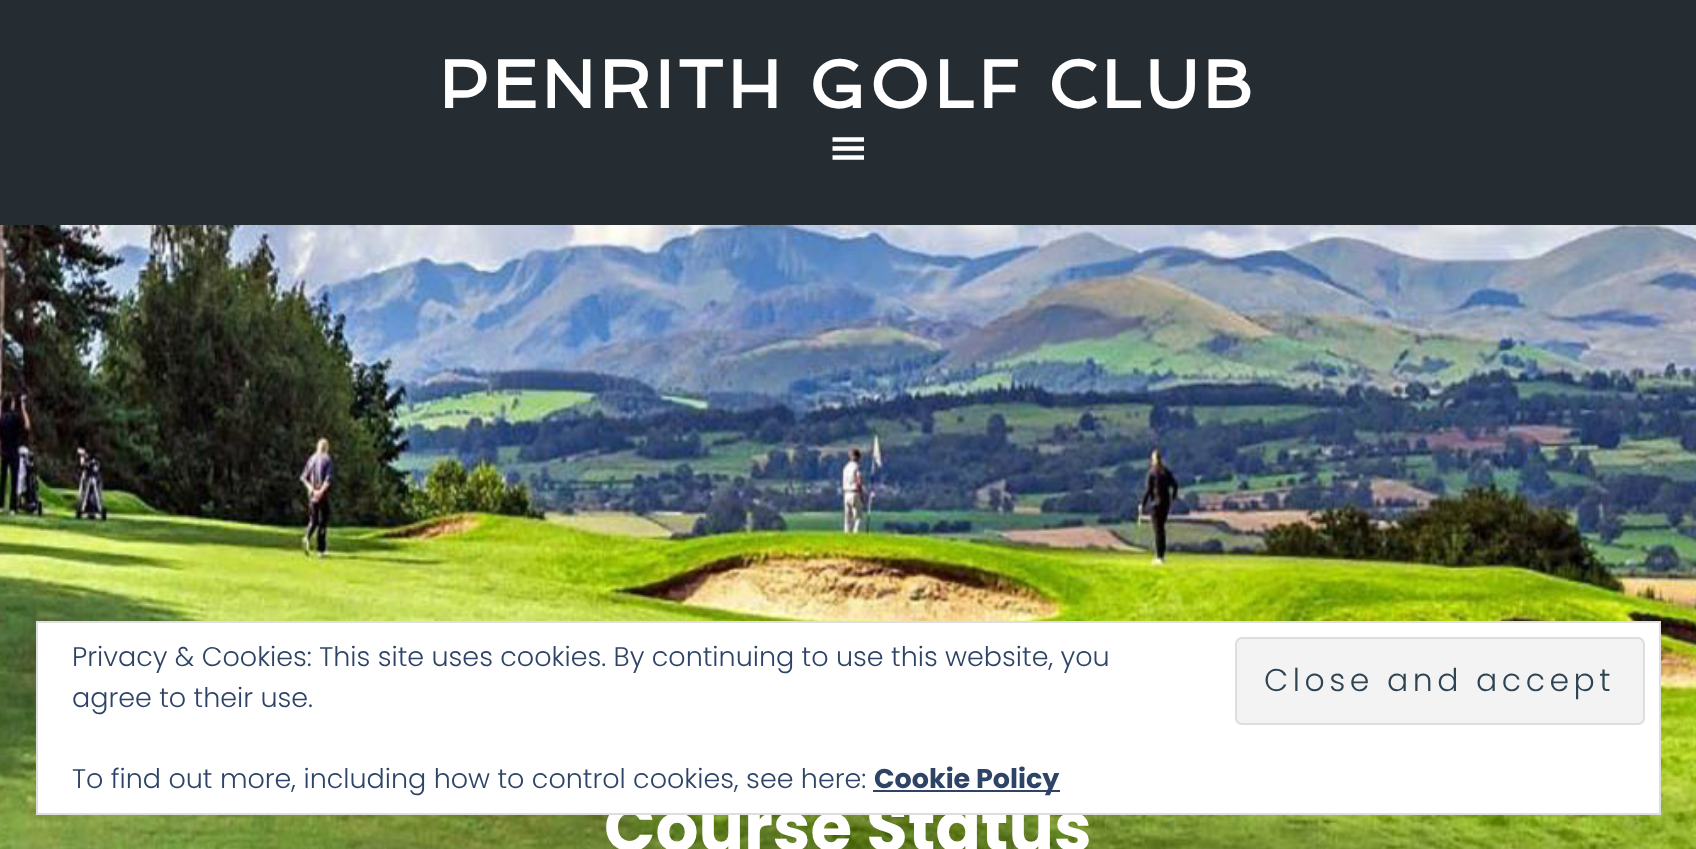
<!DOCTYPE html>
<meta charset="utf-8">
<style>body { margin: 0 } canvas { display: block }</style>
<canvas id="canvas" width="1696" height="849"></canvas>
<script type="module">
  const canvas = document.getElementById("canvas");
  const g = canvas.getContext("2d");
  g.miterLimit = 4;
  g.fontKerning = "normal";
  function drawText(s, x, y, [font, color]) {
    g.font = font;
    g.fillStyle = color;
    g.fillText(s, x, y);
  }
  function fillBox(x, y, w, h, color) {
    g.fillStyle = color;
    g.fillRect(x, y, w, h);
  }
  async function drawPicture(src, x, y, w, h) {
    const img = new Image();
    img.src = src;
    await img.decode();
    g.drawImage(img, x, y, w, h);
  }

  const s1 = ["bold 67.5px Spinnaker", "#FFFFFF"];
  const s2 = ["bold 67.5px Poppins", "#FFFFFF"];
  const s3 = ["300 27px Poppins", "#2E4467"];
  const s4 = ["300 31.5px Poppins", "#2E4453"];
  const s5 = ["bold 27px Poppins", "#2E4467"];

  fillBox(0, 0, 1696, 849, "#252D33");
  g.letterSpacing = "4.5px";
  drawText("PENRITH GOLF CLUB", 439, 108, s1);
  await drawPicture("pic1.png", 832, 137, 32, 23);
  await drawPicture("pic2.png", 0, 225, 1696, 624);
  g.letterSpacing = "0px";
  drawText("Course Status", 604, 851, s2);
  g.beginPath();
  g.rect(37, 622, 1623, 192);
  g.fill();
  g.strokeStyle = "#DEDEDE";
  g.lineWidth = 2;
  g.stroke();
  drawText("Privacy & Cookies: This site uses cookies. By continuing to use this website, you", 72, 666, s3);
  drawText("agree to their use.", 72, 707, s3);
  g.fillStyle = "#F3F3F3";
  g.beginPath();
  g.roundRect(1236, 638, 408, 86, 6);
  g.fill();
  g.stroke();
  g.letterSpacing = "4.5px";
  drawText("Close and accept", 1264, 691, s4);
  g.letterSpacing = "0px";
  drawText("To find out more, including how to control cookies, see here:", 72, 788, s3);
  fillBox(873, 790, 187, 2, "#2E4467");
  drawText("Cookie Policy", 874, 788, s5);
</script>
